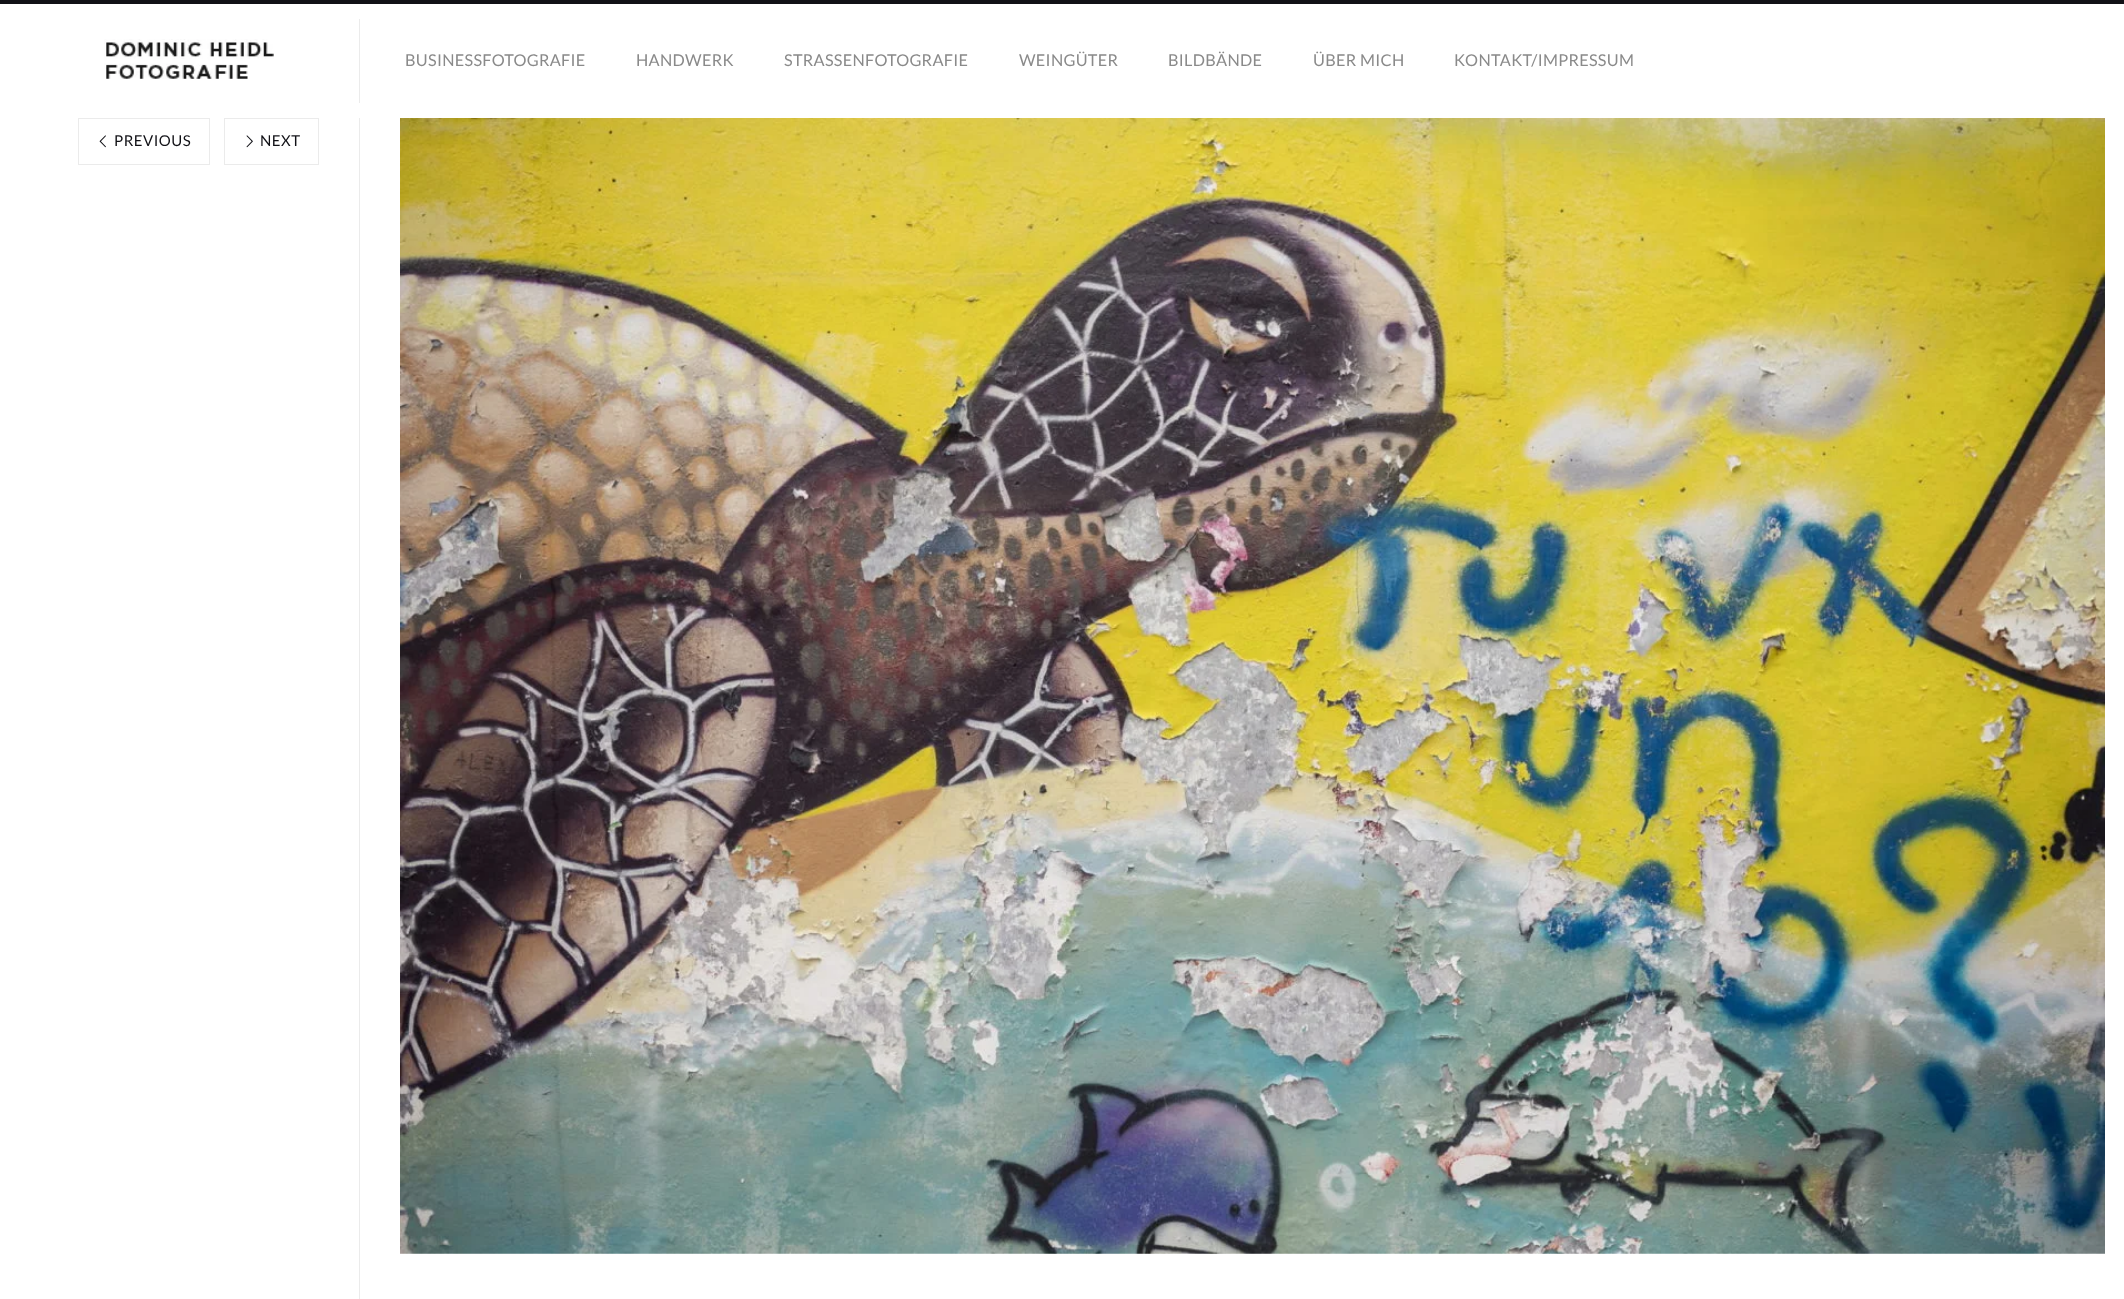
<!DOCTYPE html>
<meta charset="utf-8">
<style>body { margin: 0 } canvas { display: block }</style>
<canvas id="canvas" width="2124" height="1299"></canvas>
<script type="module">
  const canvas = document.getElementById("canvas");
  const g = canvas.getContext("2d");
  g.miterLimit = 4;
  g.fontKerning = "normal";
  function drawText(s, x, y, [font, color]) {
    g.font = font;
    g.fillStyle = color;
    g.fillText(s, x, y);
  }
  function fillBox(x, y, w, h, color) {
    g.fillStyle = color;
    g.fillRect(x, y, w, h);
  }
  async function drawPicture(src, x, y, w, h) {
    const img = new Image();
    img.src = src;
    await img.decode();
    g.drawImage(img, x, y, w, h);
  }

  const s1 = ["16.25px Lato", "#8A8A8A"];
  const s2 = ["15px Lato", "#111116"];

  fillBox(0, 0, 2124, 1299, "#FFFFFF");
  fillBox(0, 0, 2124, 4, "#111116");
  fillBox(359, 19, 1, 84, "#EBEBEB");
  await drawPicture("pic1.png", 104, 39, 170, 40);
  g.letterSpacing = "0.3px";
  drawText("BUSINESSFOTOGRAFIE", 405, 66, s1);
  drawText("HANDWERK", 636, 66, s1);
  drawText("STRASSENFOTOGRAFIE", 784, 66, s1);
  drawText("WEINGÜTER", 1019, 66, s1);
  drawText("BILDBÄNDE", 1168, 66, s1);
  drawText("ÜBER MICH", 1313, 66, s1);
  drawText("KONTAKT/IMPRESSUM", 1454, 66, s1);
  fillBox(359, 118, 1, 1181, "#EBEBEB");
  g.strokeStyle = "#EBEBEB";
  g.strokeRect(78.5, 118.5, 131, 46);
  await drawPicture("pic2.png", 99, 135, 7, 13);
  g.letterSpacing = "0.5px";
  drawText("PREVIOUS", 114, 146, s2);
  g.strokeRect(224.5, 118.5, 94, 46);
  await drawPicture("pic3.png", 246, 135, 7, 13);
  drawText("NEXT", 260, 146, s2);
  await drawPicture("pic4.png", 400, 118, 1705, 1136);
</script>
